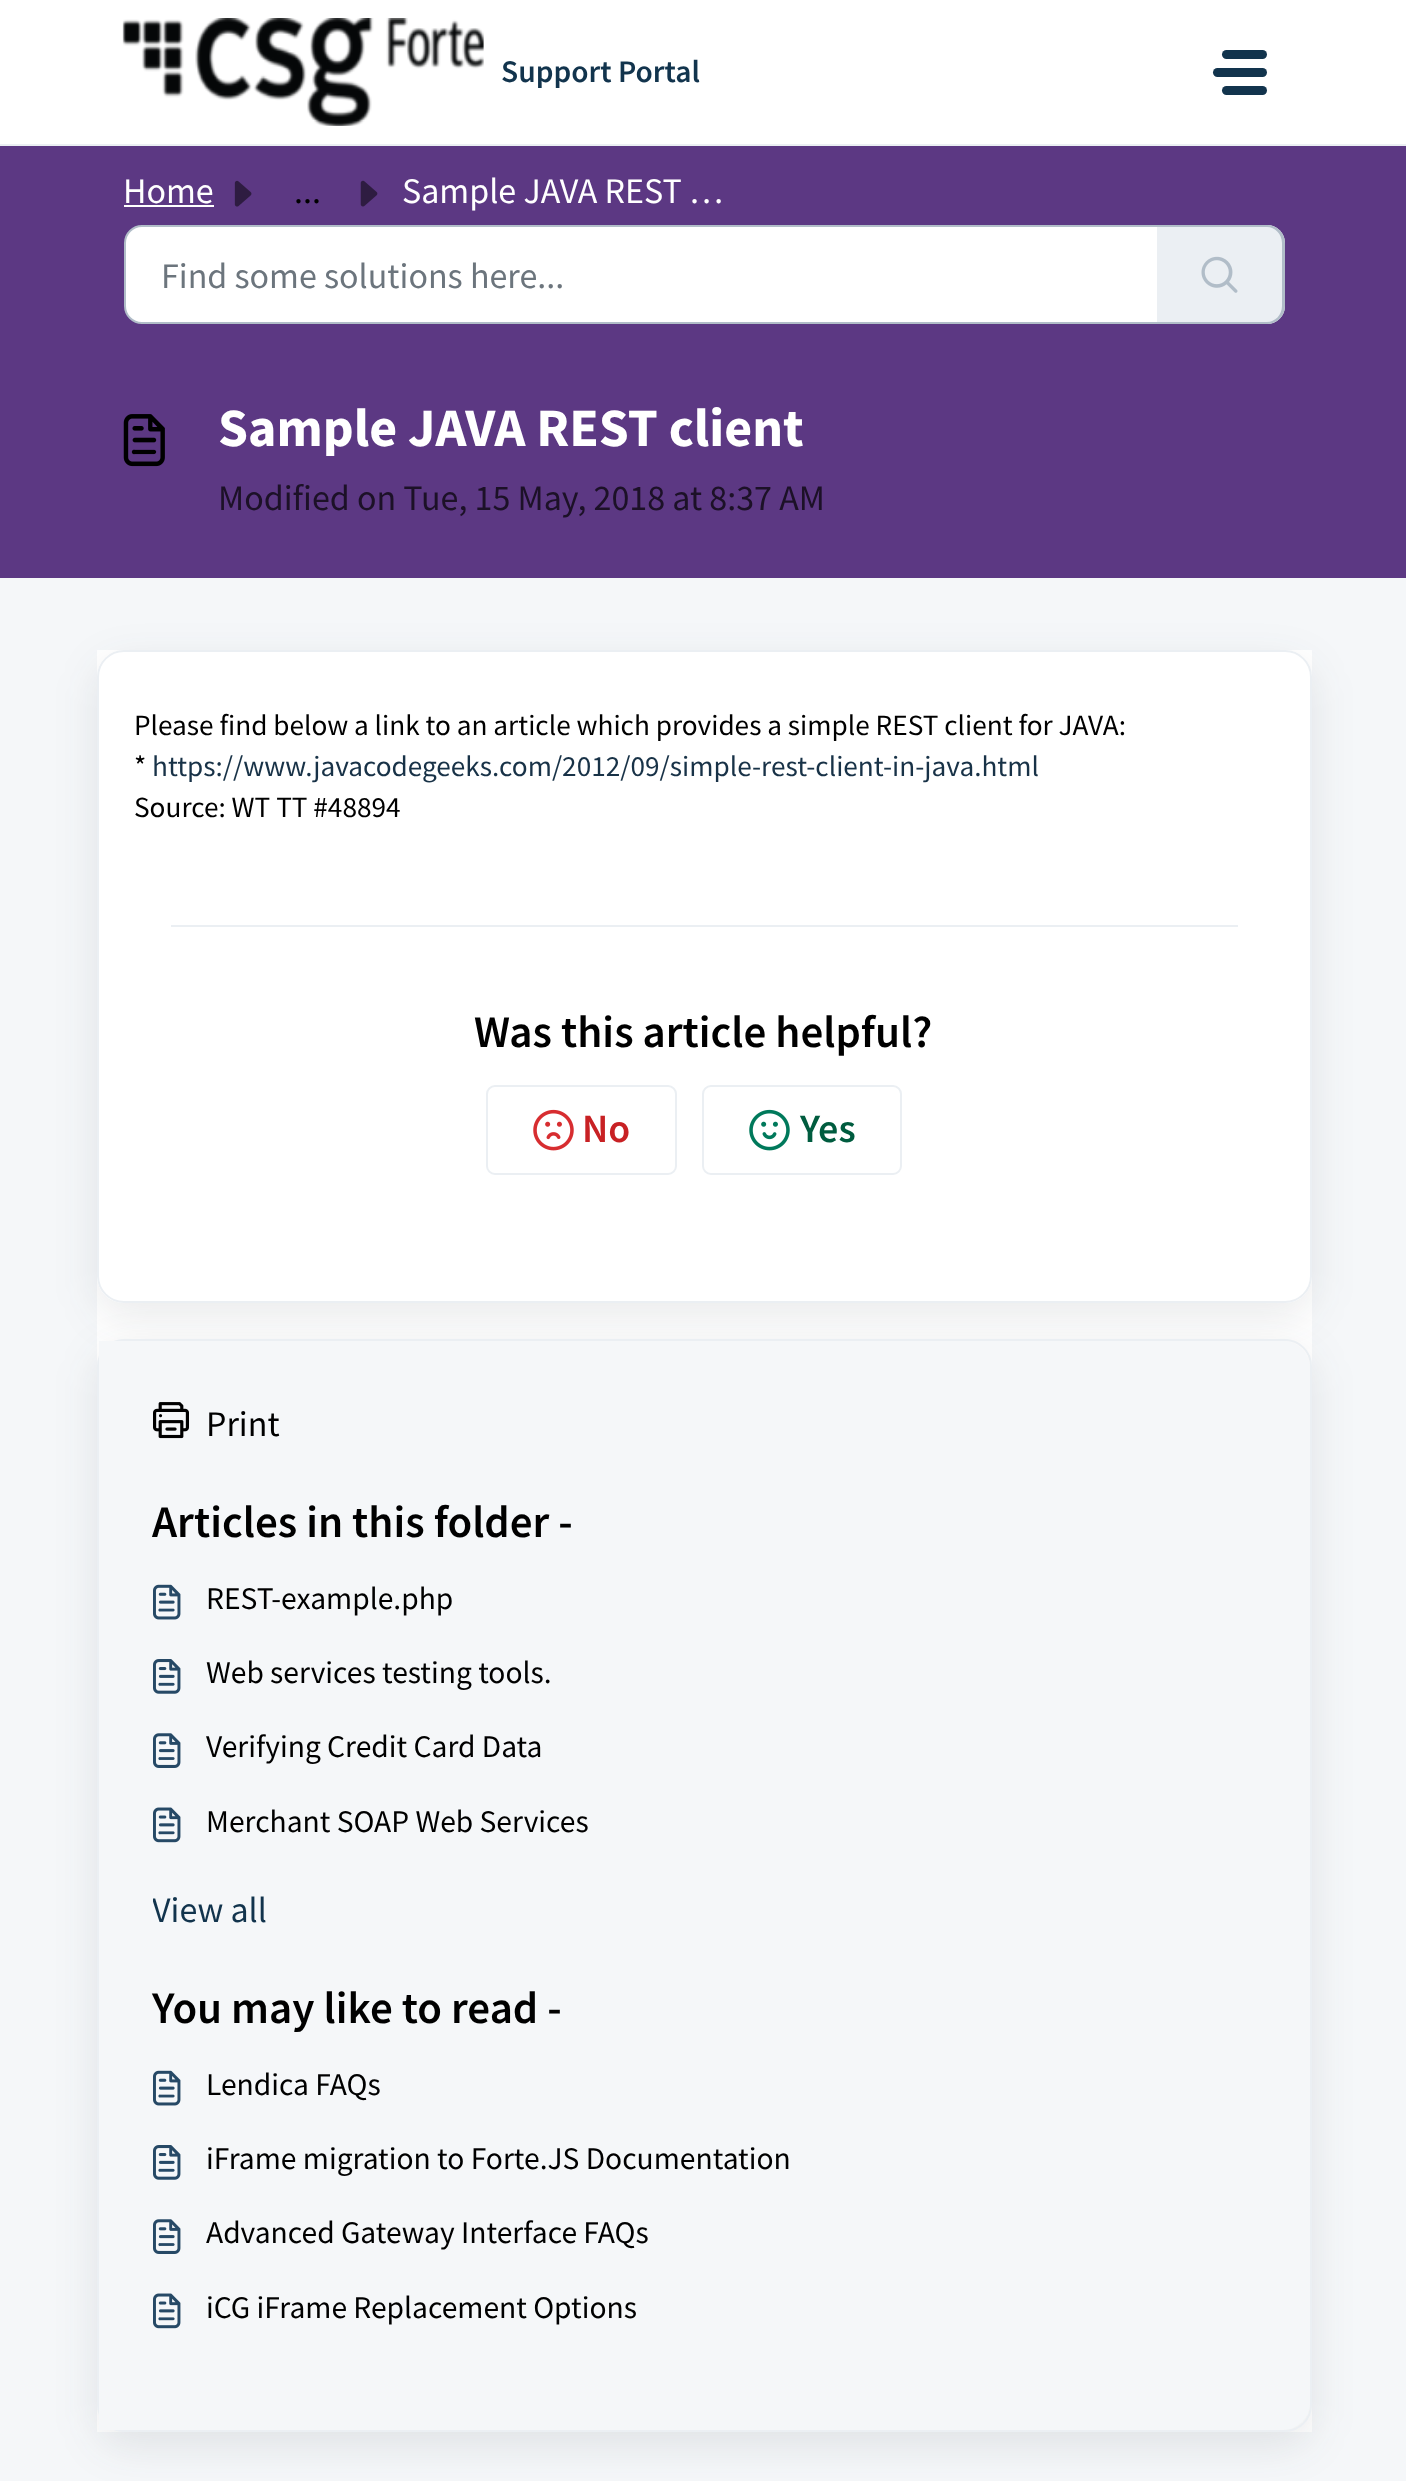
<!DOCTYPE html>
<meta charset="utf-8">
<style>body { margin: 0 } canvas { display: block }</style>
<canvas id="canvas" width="1406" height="2481"></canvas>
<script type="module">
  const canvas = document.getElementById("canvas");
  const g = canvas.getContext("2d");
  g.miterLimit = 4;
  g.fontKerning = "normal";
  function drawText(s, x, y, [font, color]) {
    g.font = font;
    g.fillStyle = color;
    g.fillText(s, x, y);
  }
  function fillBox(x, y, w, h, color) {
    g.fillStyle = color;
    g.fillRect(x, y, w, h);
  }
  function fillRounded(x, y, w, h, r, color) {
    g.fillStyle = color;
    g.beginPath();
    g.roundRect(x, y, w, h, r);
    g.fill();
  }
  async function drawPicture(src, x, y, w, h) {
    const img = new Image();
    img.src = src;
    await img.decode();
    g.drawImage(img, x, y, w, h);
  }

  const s1 = ["600 31.5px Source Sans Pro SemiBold", "#12344D"];
  const s2 = ["36px Source Sans Pro", "#FFFFFF"];
  const s3 = ["36px Source Sans Pro", "#000000"];
  const s4 = ["36px Source Sans Pro", "#6C757D"];
  const s5 = ["bold 54px Source Sans Pro", "#FFFFFF"];
  const s6 = ["36px Source Sans Pro", "#1C1127"];
  const s7 = ["29.25px Source Sans Pro", "#000000"];
  const s8 = ["29.25px Source Sans Pro", "#183247"];
  const s9 = ["600 45px Source Sans Pro SemiBold", "#000000"];
  const s10 = ["600 40px Source Sans Pro SemiBold", "#C82124"];
  const s11 = ["600 40px Source Sans Pro SemiBold", "#005C3F"];
  const s12 = ["31.5px Source Sans Pro", "#000000"];
  const s13 = ["36px Source Sans Pro", "#12344D"];

  fillBox(0, 0, 1406, 2481, "#F5F7F9");
  fillBox(0, 0, 1406, 144, "#FFFFFF");
  fillBox(0, 144, 1406, 2, "#EBEFF3");
  await drawPicture("pic1.png", 122, 18, 362, 108);
  drawText("Support Portal", 501, 82, s1);
  fillRounded(1222, 50, 45, 9, 4.5, "#12344D");
  fillRounded(1213, 68, 54, 9, 4.5, "#12344D");
  fillRounded(1222, 86, 45, 9, 4.5, "#12344D");
  fillBox(0, 146, 1406, 432, "#5C3883");
  drawText("Home", 123, 203, s2);
  fillBox(124, 205, 90, 2, "#FFFFFF");
  await drawPicture("pic2.png", 234, 180, 18, 27);
  drawText("...", 294, 203, s3);
  await drawPicture("pic3.png", 360, 180, 18, 27);
  drawText("Sample JAVA REST …", 402, 203, s2);
  g.beginPath();
  g.roundRect(125, 226, 1033, 97, [17, 0, 0, 17]);
  g.fill();
  g.strokeStyle = "#B1BDC8";
  g.lineWidth = 2;
  g.stroke();
  drawText("Find some solutions here...", 161, 288, s4);
  g.fillStyle = "#EBEFF3";
  g.beginPath();
  g.roundRect(1157, 225, 128, 99, [0, 18, 18, 0]);
  g.fill();
  g.fillStyle = "#B1BDC8";
  g.beginPath();
  g.moveTo(1156, 225);
  g.lineTo(1267, 225);
  g.bezierCurveTo(1277, 225, 1285, 233, 1285, 243);
  g.lineTo(1285, 306);
  g.bezierCurveTo(1285, 316, 1277, 324, 1267, 324);
  g.lineTo(1156, 324);
  g.closePath();
  g.moveTo(1156, 227);
  g.lineTo(1267, 227);
  g.bezierCurveTo(1275, 227, 1282, 234, 1282, 243);
  g.lineTo(1282, 306);
  g.bezierCurveTo(1282, 315, 1275, 322, 1267, 322);
  g.lineTo(1156, 322);
  g.closePath();
  g.fill("evenodd");
  await drawPicture("pic4.png", 1201, 256, 37, 37);
  await drawPicture("pic5.png", 123, 414, 42, 53);
  drawText("Sample JAVA REST client", 218, 446, s5);
  drawText("Modified on Tue, 15 May, 2018 at 8:37 AM", 218, 510, s6);
  fillBox(97, 650, 1215, 1782, "#FFFFFF");
  g.save();
  g.beginPath();
  g.moveTo(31, 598);
  g.lineTo(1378, 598);
  g.lineTo(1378, 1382);
  g.lineTo(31, 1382);
  g.closePath();
  g.moveTo(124, 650);
  g.lineTo(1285, 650);
  g.bezierCurveTo(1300, 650, 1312, 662, 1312, 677);
  g.lineTo(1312, 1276);
  g.bezierCurveTo(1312, 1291, 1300, 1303, 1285, 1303);
  g.lineTo(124, 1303);
  g.bezierCurveTo(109, 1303, 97, 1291, 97, 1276);
  g.lineTo(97, 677);
  g.bezierCurveTo(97, 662, 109, 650, 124, 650);
  g.closePath();
  g.clip("evenodd");
  g.fillStyle = "rgba(39, 49, 58, 0.1)";
  g.filter = "blur(21.5px)";
  g.beginPath();
  g.roundRect(97, 664, 1215, 652, 27);
  g.fill();
  g.filter = "none";
  g.restore();
  g.beginPath();
  g.roundRect(98, 651, 1213, 651, 26);
  g.strokeStyle = "#EBEFF3";
  g.stroke();
  drawText("Please find below a link to an article which provides a simple REST client for JAVA:", 134, 735, s7);
  drawText("*", 134, 776, s7);
  drawText("https://www.javacodegeeks.com/2012/09/simple-rest-client-in-java.html", 152, 776, s8);
  drawText("Source: WT TT #48894", 134, 817, s7);
  fillBox(171, 925, 1067, 2, "#EBEFF3");
  drawText("Was this article helpful?", 474, 1047, s9);
  g.beginPath();
  g.roundRect(487, 1086, 189, 88, 8);
  g.stroke();
  await drawPicture("pic6.png", 533, 1109, 41, 42);
  drawText("No", 582, 1142, s10);
  g.beginPath();
  g.roundRect(703, 1086, 198, 88, 8);
  g.stroke();
  await drawPicture("pic7.png", 749, 1109, 41, 42);
  drawText("Yes", 800, 1142, s11);
  g.fillStyle = "rgba(39, 49, 58, 0.1)";
  g.filter = "blur(21.5px)";
  g.beginPath();
  g.roundRect(97, 1352, 1215, 1094, 27);
  g.fill();
  g.filter = "none";
  g.beginPath();
  g.roundRect(98, 1340, 1213, 1091, 26);
  g.stroke();
  g.fillStyle = "#F5F7F9";
  g.beginPath();
  g.roundRect(99, 1341, 1211, 1089, [0, 27, 27, 0]);
  g.fill();
  await drawPicture("pic8.png", 153, 1402, 36, 37);
  drawText("Print", 206, 1436, s3);
  drawText("Articles in this folder -", 152, 1537, s9);
  await drawPicture("pic9.png", 153, 1584, 28, 36);
  drawText("REST-example.php", 206, 1609, s12);
  await drawPicture("pic10.png", 153, 1659, 28, 35);
  drawText("Web services testing tools.", 206, 1683, s12);
  await drawPicture("pic11.png", 153, 1733, 28, 35);
  drawText("Verifying Credit Card Data", 206, 1757, s12);
  await drawPicture("pic12.png", 153, 1807, 28, 36);
  drawText("Merchant SOAP Web Services", 206, 1832, s12);
  g.save();
  g.beginPath();
  g.rect(153, 1881, 1103, 54);
  g.clip();
  drawText("View all", 152, 1922, s13);
  g.restore();
  drawText("You may like to read -", 152, 2023, s9);
  await drawPicture("pic9.png", 153, 2070, 28, 36);
  drawText("Lendica FAQs", 206, 2095, s12);
  await drawPicture("pic10.png", 153, 2145, 28, 35);
  drawText("iFrame migration to Forte.JS Documentation", 206, 2169, s12);
  await drawPicture("pic11.png", 153, 2219, 28, 35);
  drawText("Advanced Gateway Interface FAQs", 206, 2243, s12);
  await drawPicture("pic12.png", 153, 2293, 28, 36);
  drawText("iCG iFrame Replacement Options", 206, 2318, s12);
</script>
